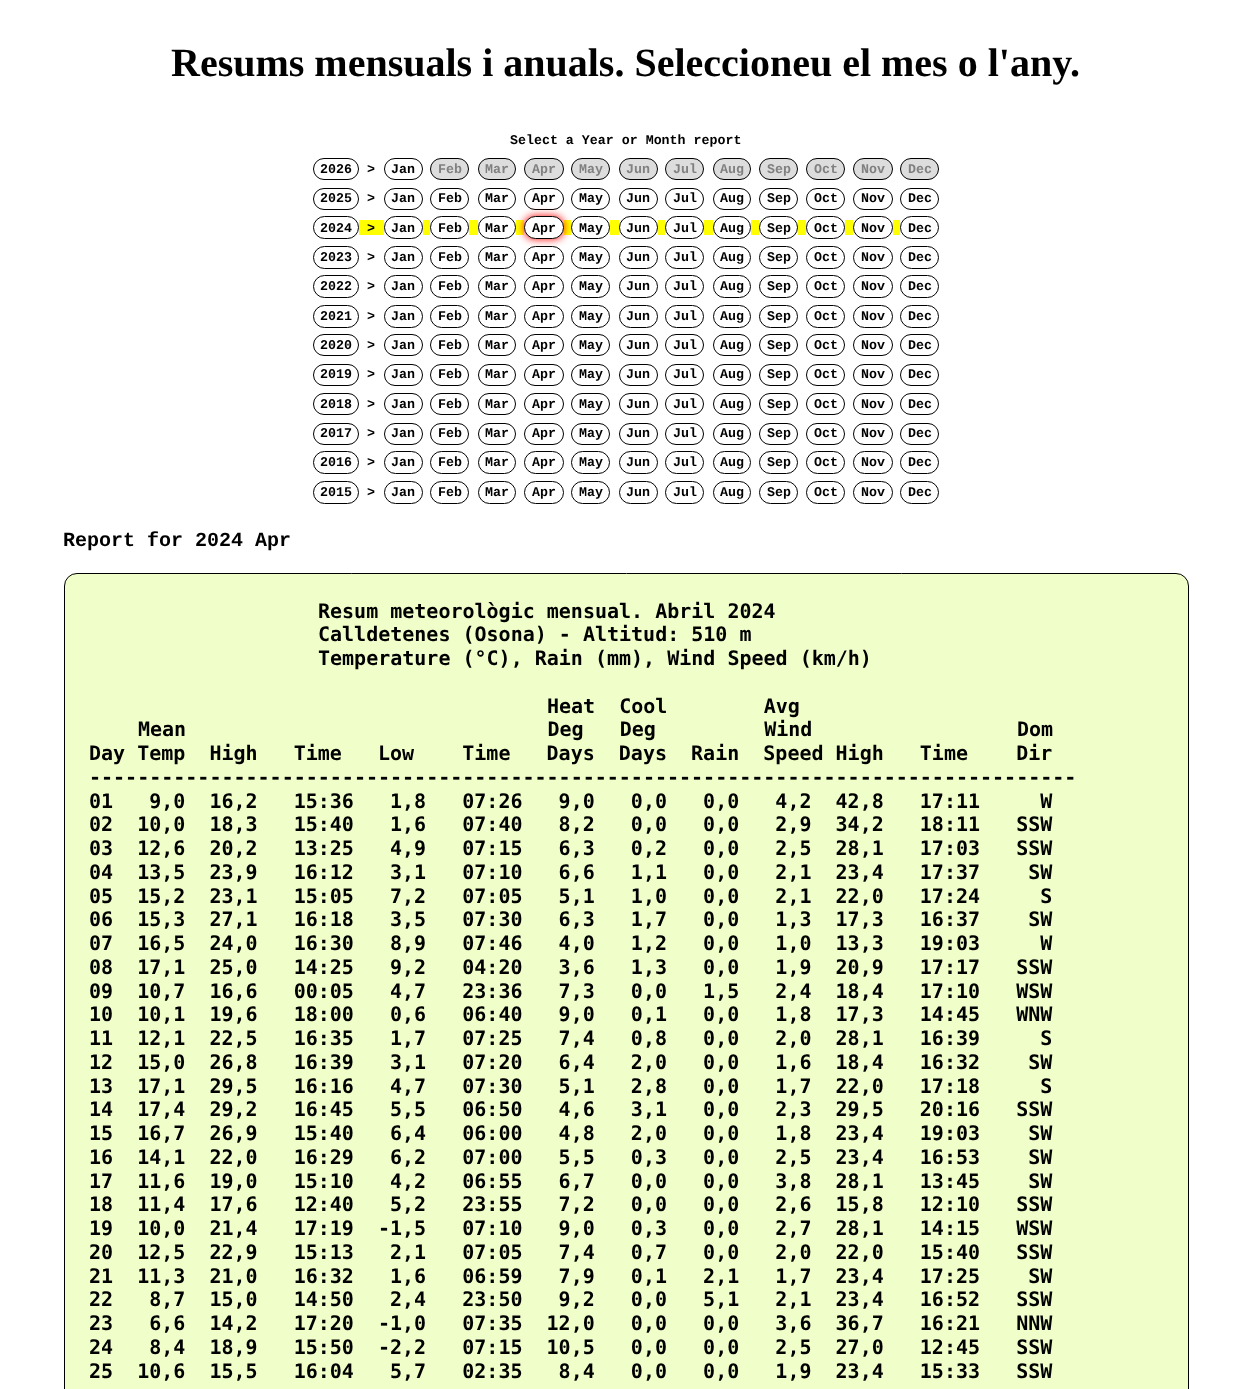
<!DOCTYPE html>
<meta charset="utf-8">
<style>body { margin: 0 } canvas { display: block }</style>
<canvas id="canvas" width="1251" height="1389"></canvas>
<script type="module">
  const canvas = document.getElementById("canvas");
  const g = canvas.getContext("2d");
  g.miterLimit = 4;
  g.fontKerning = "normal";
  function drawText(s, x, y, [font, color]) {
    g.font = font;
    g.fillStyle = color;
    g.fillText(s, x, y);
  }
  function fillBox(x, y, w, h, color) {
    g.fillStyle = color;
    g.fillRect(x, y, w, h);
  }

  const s1 = ["bold 40px Liberation Serif", "#000000"];
  const s2 = ["bold 13.3px Liberation Mono", "#000000"];
  const s3 = ["bold 13.3px Liberation Mono", "#808080"];
  const s4 = ["bold 20px Liberation Mono", "#000000"];
  const s5 = ["bold 20px DejaVu Sans Mono", "#000000"];

  fillBox(0, 0, 1251, 1389, "#FFFFFF");
  drawText("Resums mensuals i anuals. Seleccioneu el mes o l'any.", 171, 76, s1);
  drawText("Select a Year or Month report", 510, 144, s2);
  g.beginPath();
  g.roundRect(313.5, 158.5, 45, 21, 10.5);
  g.strokeStyle = "#000000";
  g.stroke();
  drawText("2026", 320, 173, s2);
  drawText(">", 367, 173, s2);
  g.beginPath();
  g.roundRect(384.5, 158.5, 38, 21, 10.5);
  g.stroke();
  drawText("Jan", 391, 173, s2);
  g.fillStyle = "#DDDDDD";
  g.beginPath();
  g.roundRect(430.5, 158.5, 38, 21, 10.5);
  g.fill();
  g.stroke();
  drawText("Feb", 438, 173, s3);
  g.fillStyle = "#DDDDDD";
  g.beginPath();
  g.roundRect(478.5, 158.5, 37, 21, 10.5);
  g.fill();
  g.stroke();
  drawText("Mar", 485, 173, s3);
  g.fillStyle = "#DDDDDD";
  g.beginPath();
  g.roundRect(524.5, 158.5, 39, 21, 10.5);
  g.fill();
  g.stroke();
  drawText("Apr", 532, 173, s3);
  g.fillStyle = "#DDDDDD";
  g.beginPath();
  g.roundRect(571.5, 158.5, 38, 21, 10.5);
  g.fill();
  g.stroke();
  drawText("May", 579, 173, s3);
  g.fillStyle = "#DDDDDD";
  g.beginPath();
  g.roundRect(619.5, 158.5, 38, 21, 10.5);
  g.fill();
  g.stroke();
  drawText("Jun", 626, 173, s3);
  g.fillStyle = "#DDDDDD";
  g.beginPath();
  g.roundRect(665.5, 158.5, 38, 21, 10.5);
  g.fill();
  g.stroke();
  drawText("Jul", 673, 173, s3);
  g.fillStyle = "#DDDDDD";
  g.beginPath();
  g.roundRect(713.5, 158.5, 37, 21, 10.5);
  g.fill();
  g.stroke();
  drawText("Aug", 720, 173, s3);
  g.fillStyle = "#DDDDDD";
  g.beginPath();
  g.roundRect(759.5, 158.5, 38, 21, 10.5);
  g.fill();
  g.stroke();
  drawText("Sep", 767, 173, s3);
  g.fillStyle = "#DDDDDD";
  g.beginPath();
  g.roundRect(806.5, 158.5, 38, 21, 10.5);
  g.fill();
  g.stroke();
  drawText("Oct", 814, 173, s3);
  g.fillStyle = "#DDDDDD";
  g.beginPath();
  g.roundRect(853.5, 158.5, 39, 21, 10.5);
  g.fill();
  g.stroke();
  drawText("Nov", 861, 173, s3);
  g.fillStyle = "#DDDDDD";
  g.beginPath();
  g.roundRect(900.5, 158.5, 38, 21, 10.5);
  g.fill();
  g.stroke();
  drawText("Dec", 908, 173, s3);
  g.beginPath();
  g.roundRect(313.5, 188.5, 45, 21, 10.5);
  g.stroke();
  drawText("2025", 320, 202, s2);
  drawText(">", 367, 202, s2);
  g.beginPath();
  g.roundRect(384.5, 188.5, 38, 21, 10.5);
  g.stroke();
  drawText("Jan", 391, 202, s2);
  g.beginPath();
  g.roundRect(430.5, 188.5, 38, 21, 10.5);
  g.stroke();
  drawText("Feb", 438, 202, s2);
  g.beginPath();
  g.roundRect(478.5, 188.5, 37, 21, 10.5);
  g.stroke();
  drawText("Mar", 485, 202, s2);
  g.beginPath();
  g.roundRect(524.5, 188.5, 39, 21, 10.5);
  g.stroke();
  drawText("Apr", 532, 202, s2);
  g.beginPath();
  g.roundRect(571.5, 188.5, 38, 21, 10.5);
  g.stroke();
  drawText("May", 579, 202, s2);
  g.beginPath();
  g.roundRect(619.5, 188.5, 38, 21, 10.5);
  g.stroke();
  drawText("Jun", 626, 202, s2);
  g.beginPath();
  g.roundRect(665.5, 188.5, 38, 21, 10.5);
  g.stroke();
  drawText("Jul", 673, 202, s2);
  g.beginPath();
  g.roundRect(713.5, 188.5, 37, 21, 10.5);
  g.stroke();
  drawText("Aug", 720, 202, s2);
  g.beginPath();
  g.roundRect(759.5, 188.5, 38, 21, 10.5);
  g.stroke();
  drawText("Sep", 767, 202, s2);
  g.beginPath();
  g.roundRect(806.5, 188.5, 38, 21, 10.5);
  g.stroke();
  drawText("Oct", 814, 202, s2);
  g.beginPath();
  g.roundRect(853.5, 188.5, 39, 21, 10.5);
  g.stroke();
  drawText("Nov", 861, 202, s2);
  g.beginPath();
  g.roundRect(900.5, 188.5, 38, 21, 10.5);
  g.stroke();
  drawText("Dec", 908, 202, s2);
  g.beginPath();
  g.roundRect(313.5, 216.5, 45, 22, 11);
  g.stroke();
  drawText("2024", 320, 232, s2);
  fillBox(359, 220, 25, 15, "#FFFF00");
  drawText(">", 367, 232, s2);
  g.beginPath();
  g.roundRect(384.5, 216.5, 38, 22, 11);
  g.stroke();
  drawText("Jan", 391, 232, s2);
  g.beginPath();
  g.roundRect(430.5, 216.5, 38, 22, 11);
  g.stroke();
  drawText("Feb", 438, 232, s2);
  fillBox(423, 220, 7, 15, "#FFFF00");
  fillBox(469, 220, 9, 15, "#FFFF00");
  g.beginPath();
  g.roundRect(478.5, 216.5, 37, 22, 11);
  g.stroke();
  drawText("Mar", 485, 232, s2);
  fillBox(516, 220, 8, 15, "#FFFF00");
  fillBox(564, 220, 7, 15, "#FFFF00");
  g.fillStyle = "#FF0000";
  g.filter = "blur(4.5px)";
  g.beginPath();
  g.roundRect(524, 216, 40, 23, 11.5);
  g.fill();
  g.filter = "none";
  g.fillStyle = "#FFFFFF";
  g.beginPath();
  g.roundRect(524.5, 216.5, 39, 22, 11);
  g.fill();
  g.stroke();
  drawText("Apr", 532, 232, s2);
  g.fillStyle = "#FFFFFF";
  g.beginPath();
  g.roundRect(571.5, 216.5, 38, 22, 11);
  g.fill();
  g.stroke();
  drawText("May", 579, 232, s2);
  g.beginPath();
  g.roundRect(619.5, 216.5, 38, 22, 11);
  g.stroke();
  drawText("Jun", 626, 232, s2);
  fillBox(610, 220, 9, 15, "#FFFF00");
  g.beginPath();
  g.roundRect(665.5, 216.5, 38, 22, 11);
  g.stroke();
  drawText("Jul", 673, 232, s2);
  fillBox(658, 220, 7, 15, "#FFFF00");
  fillBox(704, 220, 9, 15, "#FFFF00");
  g.beginPath();
  g.roundRect(713.5, 216.5, 37, 22, 11);
  g.stroke();
  drawText("Aug", 720, 232, s2);
  g.beginPath();
  g.roundRect(759.5, 216.5, 38, 22, 11);
  g.stroke();
  drawText("Sep", 767, 232, s2);
  fillBox(751, 220, 8, 15, "#FFFF00");
  g.beginPath();
  g.roundRect(806.5, 216.5, 38, 22, 11);
  g.stroke();
  drawText("Oct", 814, 232, s2);
  fillBox(798, 220, 8, 15, "#FFFF00");
  fillBox(845, 220, 8, 15, "#FFFF00");
  g.beginPath();
  g.roundRect(853.5, 216.5, 39, 22, 11);
  g.stroke();
  drawText("Nov", 861, 232, s2);
  fillBox(893, 220, 7, 15, "#FFFF00");
  g.beginPath();
  g.roundRect(900.5, 216.5, 38, 22, 11);
  g.stroke();
  drawText("Dec", 908, 232, s2);
  g.beginPath();
  g.roundRect(313.5, 246.5, 45, 22, 11);
  g.stroke();
  drawText("2023", 320, 261, s2);
  drawText(">", 367, 261, s2);
  g.beginPath();
  g.roundRect(384.5, 246.5, 38, 22, 11);
  g.stroke();
  drawText("Jan", 391, 261, s2);
  g.beginPath();
  g.roundRect(430.5, 246.5, 38, 22, 11);
  g.stroke();
  drawText("Feb", 438, 261, s2);
  g.beginPath();
  g.roundRect(478.5, 246.5, 37, 22, 11);
  g.stroke();
  drawText("Mar", 485, 261, s2);
  g.fillStyle = "#FFFFFF";
  g.beginPath();
  g.roundRect(524.5, 246.5, 39, 22, 11);
  g.fill();
  g.stroke();
  drawText("Apr", 532, 261, s2);
  g.beginPath();
  g.roundRect(571.5, 246.5, 38, 22, 11);
  g.stroke();
  drawText("May", 579, 261, s2);
  g.beginPath();
  g.roundRect(619.5, 246.5, 38, 22, 11);
  g.stroke();
  drawText("Jun", 626, 261, s2);
  g.beginPath();
  g.roundRect(665.5, 246.5, 38, 22, 11);
  g.stroke();
  drawText("Jul", 673, 261, s2);
  g.beginPath();
  g.roundRect(713.5, 246.5, 37, 22, 11);
  g.stroke();
  drawText("Aug", 720, 261, s2);
  g.beginPath();
  g.roundRect(759.5, 246.5, 38, 22, 11);
  g.stroke();
  drawText("Sep", 767, 261, s2);
  g.beginPath();
  g.roundRect(806.5, 246.5, 38, 22, 11);
  g.stroke();
  drawText("Oct", 814, 261, s2);
  g.beginPath();
  g.roundRect(853.5, 246.5, 39, 22, 11);
  g.stroke();
  drawText("Nov", 861, 261, s2);
  g.beginPath();
  g.roundRect(900.5, 246.5, 38, 22, 11);
  g.stroke();
  drawText("Dec", 908, 261, s2);
  g.beginPath();
  g.roundRect(313.5, 275.5, 45, 22, 11);
  g.stroke();
  drawText("2022", 320, 290, s2);
  drawText(">", 367, 290, s2);
  g.beginPath();
  g.roundRect(384.5, 275.5, 38, 22, 11);
  g.stroke();
  drawText("Jan", 391, 290, s2);
  g.beginPath();
  g.roundRect(430.5, 275.5, 38, 22, 11);
  g.stroke();
  drawText("Feb", 438, 290, s2);
  g.beginPath();
  g.roundRect(478.5, 275.5, 37, 22, 11);
  g.stroke();
  drawText("Mar", 485, 290, s2);
  g.beginPath();
  g.roundRect(524.5, 275.5, 39, 22, 11);
  g.stroke();
  drawText("Apr", 532, 290, s2);
  g.beginPath();
  g.roundRect(571.5, 275.5, 38, 22, 11);
  g.stroke();
  drawText("May", 579, 290, s2);
  g.beginPath();
  g.roundRect(619.5, 275.5, 38, 22, 11);
  g.stroke();
  drawText("Jun", 626, 290, s2);
  g.beginPath();
  g.roundRect(665.5, 275.5, 38, 22, 11);
  g.stroke();
  drawText("Jul", 673, 290, s2);
  g.beginPath();
  g.roundRect(713.5, 275.5, 37, 22, 11);
  g.stroke();
  drawText("Aug", 720, 290, s2);
  g.beginPath();
  g.roundRect(759.5, 275.5, 38, 22, 11);
  g.stroke();
  drawText("Sep", 767, 290, s2);
  g.beginPath();
  g.roundRect(806.5, 275.5, 38, 22, 11);
  g.stroke();
  drawText("Oct", 814, 290, s2);
  g.beginPath();
  g.roundRect(853.5, 275.5, 39, 22, 11);
  g.stroke();
  drawText("Nov", 861, 290, s2);
  g.beginPath();
  g.roundRect(900.5, 275.5, 38, 22, 11);
  g.stroke();
  drawText("Dec", 908, 290, s2);
  g.beginPath();
  g.roundRect(313.5, 305.5, 45, 22, 11);
  g.stroke();
  drawText("2021", 320, 320, s2);
  drawText(">", 367, 320, s2);
  g.beginPath();
  g.roundRect(384.5, 305.5, 38, 22, 11);
  g.stroke();
  drawText("Jan", 391, 320, s2);
  g.beginPath();
  g.roundRect(430.5, 305.5, 38, 22, 11);
  g.stroke();
  drawText("Feb", 438, 320, s2);
  g.beginPath();
  g.roundRect(478.5, 305.5, 37, 22, 11);
  g.stroke();
  drawText("Mar", 485, 320, s2);
  g.beginPath();
  g.roundRect(524.5, 305.5, 39, 22, 11);
  g.stroke();
  drawText("Apr", 532, 320, s2);
  g.beginPath();
  g.roundRect(571.5, 305.5, 38, 22, 11);
  g.stroke();
  drawText("May", 579, 320, s2);
  g.beginPath();
  g.roundRect(619.5, 305.5, 38, 22, 11);
  g.stroke();
  drawText("Jun", 626, 320, s2);
  g.beginPath();
  g.roundRect(665.5, 305.5, 38, 22, 11);
  g.stroke();
  drawText("Jul", 673, 320, s2);
  g.beginPath();
  g.roundRect(713.5, 305.5, 37, 22, 11);
  g.stroke();
  drawText("Aug", 720, 320, s2);
  g.beginPath();
  g.roundRect(759.5, 305.5, 38, 22, 11);
  g.stroke();
  drawText("Sep", 767, 320, s2);
  g.beginPath();
  g.roundRect(806.5, 305.5, 38, 22, 11);
  g.stroke();
  drawText("Oct", 814, 320, s2);
  g.beginPath();
  g.roundRect(853.5, 305.5, 39, 22, 11);
  g.stroke();
  drawText("Nov", 861, 320, s2);
  g.beginPath();
  g.roundRect(900.5, 305.5, 38, 22, 11);
  g.stroke();
  drawText("Dec", 908, 320, s2);
  g.beginPath();
  g.roundRect(313.5, 334.5, 45, 21, 10.5);
  g.stroke();
  drawText("2020", 320, 349, s2);
  drawText(">", 367, 349, s2);
  g.beginPath();
  g.roundRect(384.5, 334.5, 38, 21, 10.5);
  g.stroke();
  drawText("Jan", 391, 349, s2);
  g.beginPath();
  g.roundRect(430.5, 334.5, 38, 21, 10.5);
  g.stroke();
  drawText("Feb", 438, 349, s2);
  g.beginPath();
  g.roundRect(478.5, 334.5, 37, 21, 10.5);
  g.stroke();
  drawText("Mar", 485, 349, s2);
  g.beginPath();
  g.roundRect(524.5, 334.5, 39, 21, 10.5);
  g.stroke();
  drawText("Apr", 532, 349, s2);
  g.beginPath();
  g.roundRect(571.5, 334.5, 38, 21, 10.5);
  g.stroke();
  drawText("May", 579, 349, s2);
  g.beginPath();
  g.roundRect(619.5, 334.5, 38, 21, 10.5);
  g.stroke();
  drawText("Jun", 626, 349, s2);
  g.beginPath();
  g.roundRect(665.5, 334.5, 38, 21, 10.5);
  g.stroke();
  drawText("Jul", 673, 349, s2);
  g.beginPath();
  g.roundRect(713.5, 334.5, 37, 21, 10.5);
  g.stroke();
  drawText("Aug", 720, 349, s2);
  g.beginPath();
  g.roundRect(759.5, 334.5, 38, 21, 10.5);
  g.stroke();
  drawText("Sep", 767, 349, s2);
  g.beginPath();
  g.roundRect(806.5, 334.5, 38, 21, 10.5);
  g.stroke();
  drawText("Oct", 814, 349, s2);
  g.beginPath();
  g.roundRect(853.5, 334.5, 39, 21, 10.5);
  g.stroke();
  drawText("Nov", 861, 349, s2);
  g.beginPath();
  g.roundRect(900.5, 334.5, 38, 21, 10.5);
  g.stroke();
  drawText("Dec", 908, 349, s2);
  g.beginPath();
  g.roundRect(313.5, 364.5, 45, 21, 10.5);
  g.stroke();
  drawText("2019", 320, 378, s2);
  drawText(">", 367, 378, s2);
  g.beginPath();
  g.roundRect(384.5, 364.5, 38, 21, 10.5);
  g.stroke();
  drawText("Jan", 391, 378, s2);
  g.beginPath();
  g.roundRect(430.5, 364.5, 38, 21, 10.5);
  g.stroke();
  drawText("Feb", 438, 378, s2);
  g.beginPath();
  g.roundRect(478.5, 364.5, 37, 21, 10.5);
  g.stroke();
  drawText("Mar", 485, 378, s2);
  g.beginPath();
  g.roundRect(524.5, 364.5, 39, 21, 10.5);
  g.stroke();
  drawText("Apr", 532, 378, s2);
  g.beginPath();
  g.roundRect(571.5, 364.5, 38, 21, 10.5);
  g.stroke();
  drawText("May", 579, 378, s2);
  g.beginPath();
  g.roundRect(619.5, 364.5, 38, 21, 10.5);
  g.stroke();
  drawText("Jun", 626, 378, s2);
  g.beginPath();
  g.roundRect(665.5, 364.5, 38, 21, 10.5);
  g.stroke();
  drawText("Jul", 673, 378, s2);
  g.beginPath();
  g.roundRect(713.5, 364.5, 37, 21, 10.5);
  g.stroke();
  drawText("Aug", 720, 378, s2);
  g.beginPath();
  g.roundRect(759.5, 364.5, 38, 21, 10.5);
  g.stroke();
  drawText("Sep", 767, 378, s2);
  g.beginPath();
  g.roundRect(806.5, 364.5, 38, 21, 10.5);
  g.stroke();
  drawText("Oct", 814, 378, s2);
  g.beginPath();
  g.roundRect(853.5, 364.5, 39, 21, 10.5);
  g.stroke();
  drawText("Nov", 861, 378, s2);
  g.beginPath();
  g.roundRect(900.5, 364.5, 38, 21, 10.5);
  g.stroke();
  drawText("Dec", 908, 378, s2);
  g.beginPath();
  g.roundRect(313.5, 393.5, 45, 21, 10.5);
  g.stroke();
  drawText("2018", 320, 408, s2);
  drawText(">", 367, 408, s2);
  g.beginPath();
  g.roundRect(384.5, 393.5, 38, 21, 10.5);
  g.stroke();
  drawText("Jan", 391, 408, s2);
  g.beginPath();
  g.roundRect(430.5, 393.5, 38, 21, 10.5);
  g.stroke();
  drawText("Feb", 438, 408, s2);
  g.beginPath();
  g.roundRect(478.5, 393.5, 37, 21, 10.5);
  g.stroke();
  drawText("Mar", 485, 408, s2);
  g.beginPath();
  g.roundRect(524.5, 393.5, 39, 21, 10.5);
  g.stroke();
  drawText("Apr", 532, 408, s2);
  g.beginPath();
  g.roundRect(571.5, 393.5, 38, 21, 10.5);
  g.stroke();
  drawText("May", 579, 408, s2);
  g.beginPath();
  g.roundRect(619.5, 393.5, 38, 21, 10.5);
  g.stroke();
  drawText("Jun", 626, 408, s2);
  g.beginPath();
  g.roundRect(665.5, 393.5, 38, 21, 10.5);
  g.stroke();
  drawText("Jul", 673, 408, s2);
  g.beginPath();
  g.roundRect(713.5, 393.5, 37, 21, 10.5);
  g.stroke();
  drawText("Aug", 720, 408, s2);
  g.beginPath();
  g.roundRect(759.5, 393.5, 38, 21, 10.5);
  g.stroke();
  drawText("Sep", 767, 408, s2);
  g.beginPath();
  g.roundRect(806.5, 393.5, 38, 21, 10.5);
  g.stroke();
  drawText("Oct", 814, 408, s2);
  g.beginPath();
  g.roundRect(853.5, 393.5, 39, 21, 10.5);
  g.stroke();
  drawText("Nov", 861, 408, s2);
  g.beginPath();
  g.roundRect(900.5, 393.5, 38, 21, 10.5);
  g.stroke();
  drawText("Dec", 908, 408, s2);
  g.beginPath();
  g.roundRect(313.5, 423.5, 45, 21, 10.5);
  g.stroke();
  drawText("2017", 320, 437, s2);
  drawText(">", 367, 437, s2);
  g.beginPath();
  g.roundRect(384.5, 423.5, 38, 21, 10.5);
  g.stroke();
  drawText("Jan", 391, 437, s2);
  g.beginPath();
  g.roundRect(430.5, 423.5, 38, 21, 10.5);
  g.stroke();
  drawText("Feb", 438, 437, s2);
  g.beginPath();
  g.roundRect(478.5, 423.5, 37, 21, 10.5);
  g.stroke();
  drawText("Mar", 485, 437, s2);
  g.beginPath();
  g.roundRect(524.5, 423.5, 39, 21, 10.5);
  g.stroke();
  drawText("Apr", 532, 437, s2);
  g.beginPath();
  g.roundRect(571.5, 423.5, 38, 21, 10.5);
  g.stroke();
  drawText("May", 579, 437, s2);
  g.beginPath();
  g.roundRect(619.5, 423.5, 38, 21, 10.5);
  g.stroke();
  drawText("Jun", 626, 437, s2);
  g.beginPath();
  g.roundRect(665.5, 423.5, 38, 21, 10.5);
  g.stroke();
  drawText("Jul", 673, 437, s2);
  g.beginPath();
  g.roundRect(713.5, 423.5, 37, 21, 10.5);
  g.stroke();
  drawText("Aug", 720, 437, s2);
  g.beginPath();
  g.roundRect(759.5, 423.5, 38, 21, 10.5);
  g.stroke();
  drawText("Sep", 767, 437, s2);
  g.beginPath();
  g.roundRect(806.5, 423.5, 38, 21, 10.5);
  g.stroke();
  drawText("Oct", 814, 437, s2);
  g.beginPath();
  g.roundRect(853.5, 423.5, 39, 21, 10.5);
  g.stroke();
  drawText("Nov", 861, 437, s2);
  g.beginPath();
  g.roundRect(900.5, 423.5, 38, 21, 10.5);
  g.stroke();
  drawText("Dec", 908, 437, s2);
  g.beginPath();
  g.roundRect(313.5, 451.5, 45, 22, 11);
  g.stroke();
  drawText("2016", 320, 466, s2);
  drawText(">", 367, 466, s2);
  g.beginPath();
  g.roundRect(384.5, 451.5, 38, 22, 11);
  g.stroke();
  drawText("Jan", 391, 466, s2);
  g.beginPath();
  g.roundRect(430.5, 451.5, 38, 22, 11);
  g.stroke();
  drawText("Feb", 438, 466, s2);
  g.beginPath();
  g.roundRect(478.5, 451.5, 37, 22, 11);
  g.stroke();
  drawText("Mar", 485, 466, s2);
  g.beginPath();
  g.roundRect(524.5, 451.5, 39, 22, 11);
  g.stroke();
  drawText("Apr", 532, 466, s2);
  g.beginPath();
  g.roundRect(571.5, 451.5, 38, 22, 11);
  g.stroke();
  drawText("May", 579, 466, s2);
  g.beginPath();
  g.roundRect(619.5, 451.5, 38, 22, 11);
  g.stroke();
  drawText("Jun", 626, 466, s2);
  g.beginPath();
  g.roundRect(665.5, 451.5, 38, 22, 11);
  g.stroke();
  drawText("Jul", 673, 466, s2);
  g.beginPath();
  g.roundRect(713.5, 451.5, 37, 22, 11);
  g.stroke();
  drawText("Aug", 720, 466, s2);
  g.beginPath();
  g.roundRect(759.5, 451.5, 38, 22, 11);
  g.stroke();
  drawText("Sep", 767, 466, s2);
  g.beginPath();
  g.roundRect(806.5, 451.5, 38, 22, 11);
  g.stroke();
  drawText("Oct", 814, 466, s2);
  g.beginPath();
  g.roundRect(853.5, 451.5, 39, 22, 11);
  g.stroke();
  drawText("Nov", 861, 466, s2);
  g.beginPath();
  g.roundRect(900.5, 451.5, 38, 22, 11);
  g.stroke();
  drawText("Dec", 908, 466, s2);
  g.beginPath();
  g.roundRect(313.5, 481.5, 45, 22, 11);
  g.stroke();
  drawText("2015", 320, 496, s2);
  drawText(">", 367, 496, s2);
  g.beginPath();
  g.roundRect(384.5, 481.5, 38, 22, 11);
  g.stroke();
  drawText("Jan", 391, 496, s2);
  g.beginPath();
  g.roundRect(430.5, 481.5, 38, 22, 11);
  g.stroke();
  drawText("Feb", 438, 496, s2);
  g.beginPath();
  g.roundRect(478.5, 481.5, 37, 22, 11);
  g.stroke();
  drawText("Mar", 485, 496, s2);
  g.beginPath();
  g.roundRect(524.5, 481.5, 39, 22, 11);
  g.stroke();
  drawText("Apr", 532, 496, s2);
  g.beginPath();
  g.roundRect(571.5, 481.5, 38, 22, 11);
  g.stroke();
  drawText("May", 579, 496, s2);
  g.beginPath();
  g.roundRect(619.5, 481.5, 38, 22, 11);
  g.stroke();
  drawText("Jun", 626, 496, s2);
  g.beginPath();
  g.roundRect(665.5, 481.5, 38, 22, 11);
  g.stroke();
  drawText("Jul", 673, 496, s2);
  g.beginPath();
  g.roundRect(713.5, 481.5, 37, 22, 11);
  g.stroke();
  drawText("Aug", 720, 496, s2);
  g.beginPath();
  g.roundRect(759.5, 481.5, 38, 22, 11);
  g.stroke();
  drawText("Sep", 767, 496, s2);
  g.beginPath();
  g.roundRect(806.5, 481.5, 38, 22, 11);
  g.stroke();
  drawText("Oct", 814, 496, s2);
  g.beginPath();
  g.roundRect(853.5, 481.5, 39, 22, 11);
  g.stroke();
  drawText("Nov", 861, 496, s2);
  g.beginPath();
  g.roundRect(900.5, 481.5, 38, 22, 11);
  g.stroke();
  drawText("Dec", 908, 496, s2);
  drawText("Report for 2024 Apr", 63, 546, s4);
  g.fillStyle = "#F0FECA";
  g.beginPath();
  g.roundRect(64.5, 573.5, 1124, 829, 12.5);
  g.fill();
  g.stroke();
  drawText("Resum meteorològic mensual. Abril 2024", 318, 618, s5);
  drawText("Calldetenes (Osona) - Altitud: 510 m", 318, 641, s5);
  drawText("Temperature (°C), Rain (mm), Wind Speed (km/h)", 318, 665, s5);
  drawText("Heat  Cool        Avg", 547, 713, s5);
  drawText("Mean                              Deg   Deg         Wind                 Dom", 138, 736, s5);
  drawText("Day Temp  High   Time   Low    Time   Days  Days  Rain  Speed High   Time    Dir", 89, 760, s5);
  drawText("----------------------------------------------------------------------------------", 89, 784, s5);
  drawText("01   9,0  16,2   15:36   1,8   07:26   9,0   0,0   0,0   4,2  42,8   17:11     W", 89, 808, s5);
  drawText("02  10,0  18,3   15:40   1,6   07:40   8,2   0,0   0,0   2,9  34,2   18:11   SSW", 89, 831, s5);
  drawText("03  12,6  20,2   13:25   4,9   07:15   6,3   0,2   0,0   2,5  28,1   17:03   SSW", 89, 855, s5);
  drawText("04  13,5  23,9   16:12   3,1   07:10   6,6   1,1   0,0   2,1  23,4   17:37    SW", 89, 879, s5);
  drawText("05  15,2  23,1   15:05   7,2   07:05   5,1   1,0   0,0   2,1  22,0   17:24     S", 89, 903, s5);
  drawText("06  15,3  27,1   16:18   3,5   07:30   6,3   1,7   0,0   1,3  17,3   16:37    SW", 89, 926, s5);
  drawText("07  16,5  24,0   16:30   8,9   07:46   4,0   1,2   0,0   1,0  13,3   19:03     W", 89, 950, s5);
  drawText("08  17,1  25,0   14:25   9,2   04:20   3,6   1,3   0,0   1,9  20,9   17:17   SSW", 89, 974, s5);
  drawText("09  10,7  16,6   00:05   4,7   23:36   7,3   0,0   1,5   2,4  18,4   17:10   WSW", 89, 998, s5);
  drawText("10  10,1  19,6   18:00   0,6   06:40   9,0   0,1   0,0   1,8  17,3   14:45   WNW", 89, 1021, s5);
  drawText("11  12,1  22,5   16:35   1,7   07:25   7,4   0,8   0,0   2,0  28,1   16:39     S", 89, 1045, s5);
  drawText("12  15,0  26,8   16:39   3,1   07:20   6,4   2,0   0,0   1,6  18,4   16:32    SW", 89, 1069, s5);
  drawText("13  17,1  29,5   16:16   4,7   07:30   5,1   2,8   0,0   1,7  22,0   17:18     S", 89, 1093, s5);
  drawText("14  17,4  29,2   16:45   5,5   06:50   4,6   3,1   0,0   2,3  29,5   20:16   SSW", 89, 1116, s5);
  drawText("15  16,7  26,9   15:40   6,4   06:00   4,8   2,0   0,0   1,8  23,4   19:03    SW", 89, 1140, s5);
  drawText("16  14,1  22,0   16:29   6,2   07:00   5,5   0,3   0,0   2,5  23,4   16:53    SW", 89, 1164, s5);
  drawText("17  11,6  19,0   15:10   4,2   06:55   6,7   0,0   0,0   3,8  28,1   13:45    SW", 89, 1188, s5);
  drawText("18  11,4  17,6   12:40   5,2   23:55   7,2   0,0   0,0   2,6  15,8   12:10   SSW", 89, 1211, s5);
  drawText("19  10,0  21,4   17:19  -1,5   07:10   9,0   0,3   0,0   2,7  28,1   14:15   WSW", 89, 1235, s5);
  drawText("20  12,5  22,9   15:13   2,1   07:05   7,4   0,7   0,0   2,0  22,0   15:40   SSW", 89, 1259, s5);
  drawText("21  11,3  21,0   16:32   1,6   06:59   7,9   0,1   2,1   1,7  23,4   17:25    SW", 89, 1283, s5);
  drawText("22   8,7  15,0   14:50   2,4   23:50   9,2   0,0   5,1   2,1  23,4   16:52   SSW", 89, 1306, s5);
  drawText("23   6,6  14,2   17:20  -1,0   07:35  12,0   0,0   0,0   3,6  36,7   16:21   NNW", 89, 1330, s5);
  drawText("24   8,4  18,9   15:50  -2,2   07:15  10,5   0,0   0,0   2,5  27,0   12:45   SSW", 89, 1354, s5);
  drawText("25  10,6  15,5   16:04   5,7   02:35   8,4   0,0   0,0   1,9  23,4   15:33   SSW", 89, 1378, s5);
</script>
